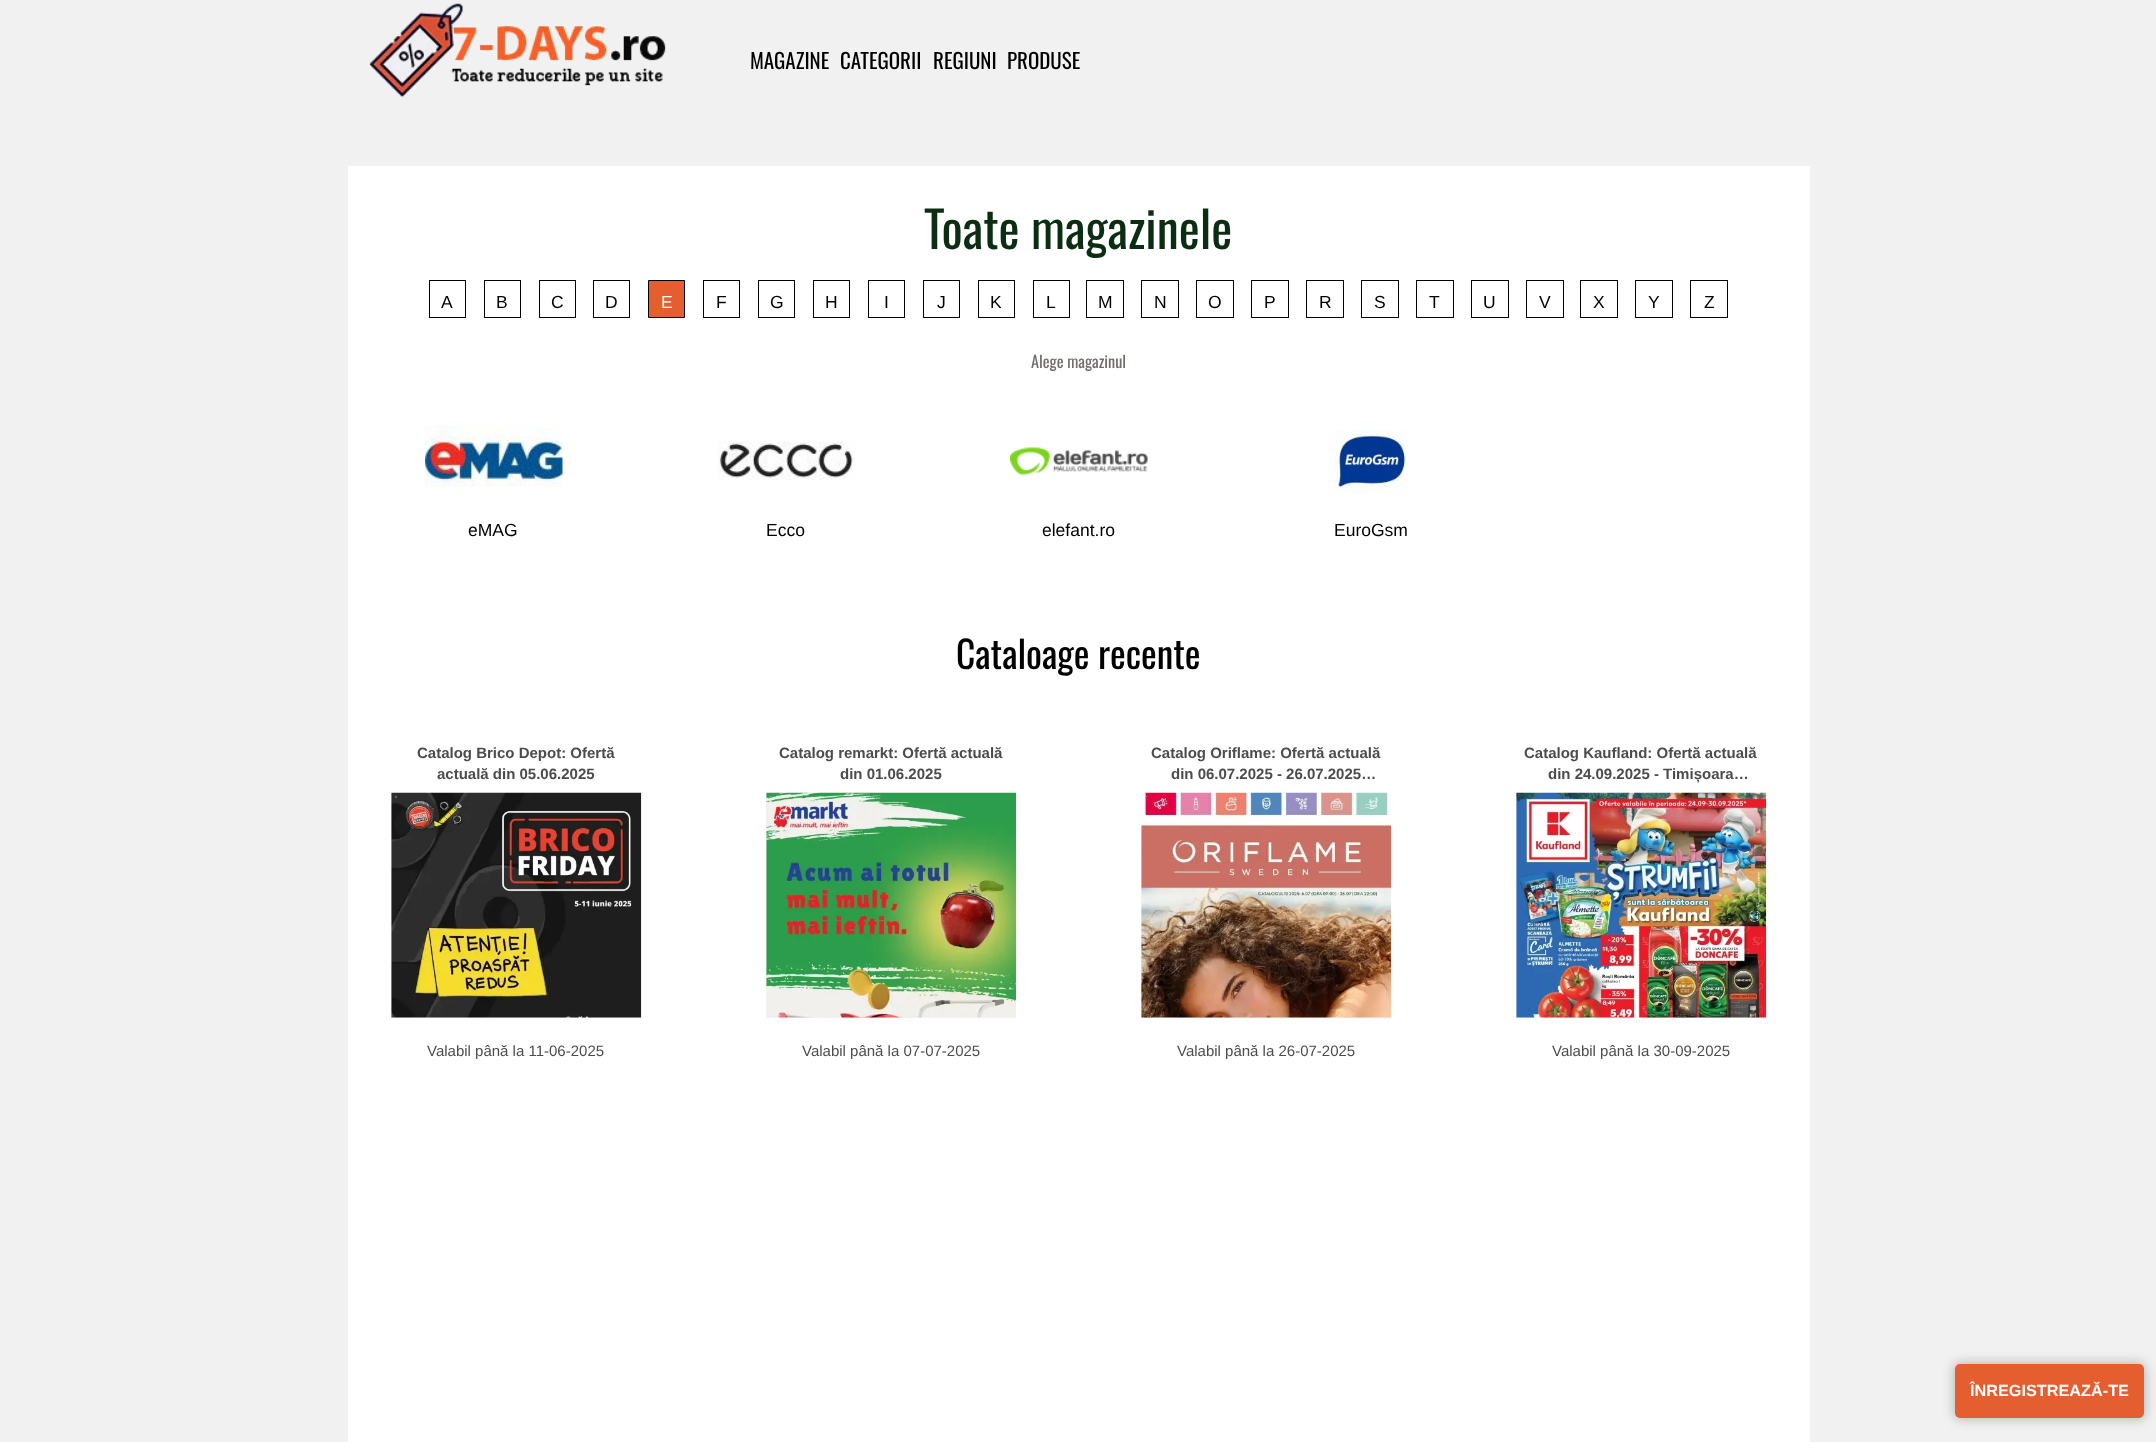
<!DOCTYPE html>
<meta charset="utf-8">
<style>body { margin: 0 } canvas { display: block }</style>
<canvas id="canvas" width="2156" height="1442"></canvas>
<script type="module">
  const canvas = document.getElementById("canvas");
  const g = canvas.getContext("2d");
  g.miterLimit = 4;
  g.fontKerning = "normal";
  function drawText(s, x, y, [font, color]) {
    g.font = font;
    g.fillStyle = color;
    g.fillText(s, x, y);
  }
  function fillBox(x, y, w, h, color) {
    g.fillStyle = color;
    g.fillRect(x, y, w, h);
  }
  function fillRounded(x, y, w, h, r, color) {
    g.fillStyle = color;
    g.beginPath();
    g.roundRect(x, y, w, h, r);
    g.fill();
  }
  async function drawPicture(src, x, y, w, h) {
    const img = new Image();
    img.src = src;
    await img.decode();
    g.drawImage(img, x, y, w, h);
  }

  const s1 = ["21px Oswald", "#000000"];
  const s2 = ["50px Oswald", "#0B2E13"];
  const s3 = ["17.5px Liberation Sans", "#000000"];
  const s4 = ["17.5px Liberation Sans", "#FFFFFF"];
  const s5 = ["16.25px Oswald", "#746B6B"];
  const s6 = ["37.5px Oswald", "#000000"];
  const s7 = ["bold 15px Liberation Sans", "#4C4C4C"];
  const s8 = ["15px Liberation Sans", "#4C4C4C"];
  const s9 = ["bold 16.25px Liberation Sans", "#FFFFFF"];

  fillBox(0, 0, 2156, 1442, "#F2F1F1");
  await drawPicture("pic1.png", 366, 3, 300, 94);
  drawText("MAGAZINE", 750, 69, s1);
  drawText("CATEGORII", 840, 69, s1);
  drawText("REGIUNI", 933, 69, s1);
  drawText("PRODUSE", 1007, 69, s1);
  fillBox(348, 166, 1462, 1276, "#FFFFFF");
  drawText("Toate magazinele", 924, 249, s2);
  g.strokeStyle = "#000000";
  g.strokeRect(429.5, 280.5, 36, 37);
  drawText("A", 441, 308, s3);
  g.strokeRect(484.5, 280.5, 36, 37);
  drawText("B", 496, 308, s3);
  g.strokeRect(539.5, 280.5, 36, 37);
  drawText("C", 551, 308, s3);
  g.strokeRect(593.5, 280.5, 36, 37);
  drawText("D", 605, 308, s3);
  g.fillStyle = "#E45E2F";
  g.beginPath();
  g.rect(648.5, 280.5, 36, 37);
  g.fill();
  g.stroke();
  drawText("E", 661, 308, s4);
  g.strokeRect(703.5, 280.5, 36, 37);
  drawText("F", 716, 308, s3);
  g.strokeRect(758.5, 280.5, 36, 37);
  drawText("G", 770, 308, s3);
  g.strokeRect(813.5, 280.5, 36, 37);
  drawText("H", 825, 308, s3);
  g.strokeRect(868.5, 280.5, 36, 37);
  drawText("I", 884, 308, s3);
  g.strokeRect(923.5, 280.5, 36, 37);
  drawText("J", 937, 308, s3);
  g.strokeRect(978.5, 280.5, 36, 37);
  drawText("K", 990, 308, s3);
  g.strokeRect(1033.5, 280.5, 36, 37);
  drawText("L", 1046, 308, s3);
  g.strokeRect(1086.5, 280.5, 37, 37);
  drawText("M", 1098, 308, s3);
  g.strokeRect(1141.5, 280.5, 37, 37);
  drawText("N", 1154, 308, s3);
  g.strokeRect(1196.5, 280.5, 37, 37);
  drawText("O", 1208, 308, s3);
  g.strokeRect(1251.5, 280.5, 37, 37);
  drawText("P", 1264, 308, s3);
  g.strokeRect(1306.5, 280.5, 37, 37);
  drawText("R", 1319, 308, s3);
  g.strokeRect(1361.5, 280.5, 37, 37);
  drawText("S", 1374, 308, s3);
  g.strokeRect(1416.5, 280.5, 37, 37);
  drawText("T", 1429, 308, s3);
  g.strokeRect(1471.5, 280.5, 37, 37);
  drawText("U", 1483, 308, s3);
  g.strokeRect(1526.5, 280.5, 37, 37);
  drawText("V", 1539, 308, s3);
  g.strokeRect(1580.5, 280.5, 37, 37);
  drawText("X", 1593, 308, s3);
  g.strokeRect(1635.5, 280.5, 37, 37);
  drawText("Y", 1648, 308, s3);
  g.strokeRect(1690.5, 280.5, 37, 37);
  drawText("Z", 1704, 308, s3);
  drawText("Alege magazinul", 1031, 368, s5);
  await drawPicture("pic2.png", 425, 426, 138, 61);
  drawText("eMAG", 468, 536, s3);
  await drawPicture("pic3.png", 717, 441, 138, 39);
  drawText("Ecco", 766, 536, s3);
  await drawPicture("pic4.png", 1010, 447, 138, 28);
  drawText("elefant.ro", 1042, 536, s3);
  await drawPicture("pic5.png", 1327, 430, 82, 64);
  drawText("EuroGsm", 1334, 536, s3);
  drawText("Cataloage recente", 956, 669, s6);
  drawText("Catalog Brico Depot: Ofertă", 417, 758, s7);
  drawText("actuală din 05.06.2025", 437, 779, s7);
  fillBox(391, 793, 250, 225, "#F3F3F3");
  await drawPicture("pic6.png", 391, 792, 251, 226);
  drawText("Valabil până la 11-06-2025", 427, 1056, s8);
  drawText("Catalog remarkt: Ofertă actuală", 779, 758, s7);
  drawText("din 01.06.2025", 840, 779, s7);
  fillBox(766, 793, 250, 225, "#F3F3F3");
  await drawPicture("pic7.png", 766, 792, 251, 226);
  drawText("Valabil până la 07-07-2025", 802, 1056, s8);
  drawText("Catalog Oriflame: Ofertă actuală", 1151, 758, s7);
  drawText("din 06.07.2025 - 26.07.2025…", 1171, 779, s7);
  fillBox(1141, 793, 250, 225, "#F3F3F3");
  await drawPicture("pic8.png", 1141, 792, 251, 226);
  drawText("Valabil până la 26-07-2025", 1177, 1056, s8);
  drawText("Catalog Kaufland: Ofertă actuală", 1524, 758, s7);
  drawText("din 24.09.2025 - Timișoara…", 1548, 779, s7);
  fillBox(1516, 793, 250, 225, "#F3F3F3");
  await drawPicture("pic9.png", 1516, 792, 251, 226);
  drawText("Valabil până la 30-09-2025", 1552, 1056, s8);
  g.fillStyle = "rgba(0, 0, 0, 0.25)";
  g.filter = "blur(6px)";
  g.beginPath();
  g.roundRect(1954, 1363, 191, 56, 6);
  g.fill();
  g.filter = "none";
  fillRounded(1955, 1364, 189, 54, 5, "#E45E2F");
  drawText("ÎNREGISTREAZĂ-TE", 1970, 1396, s9);
</script>
